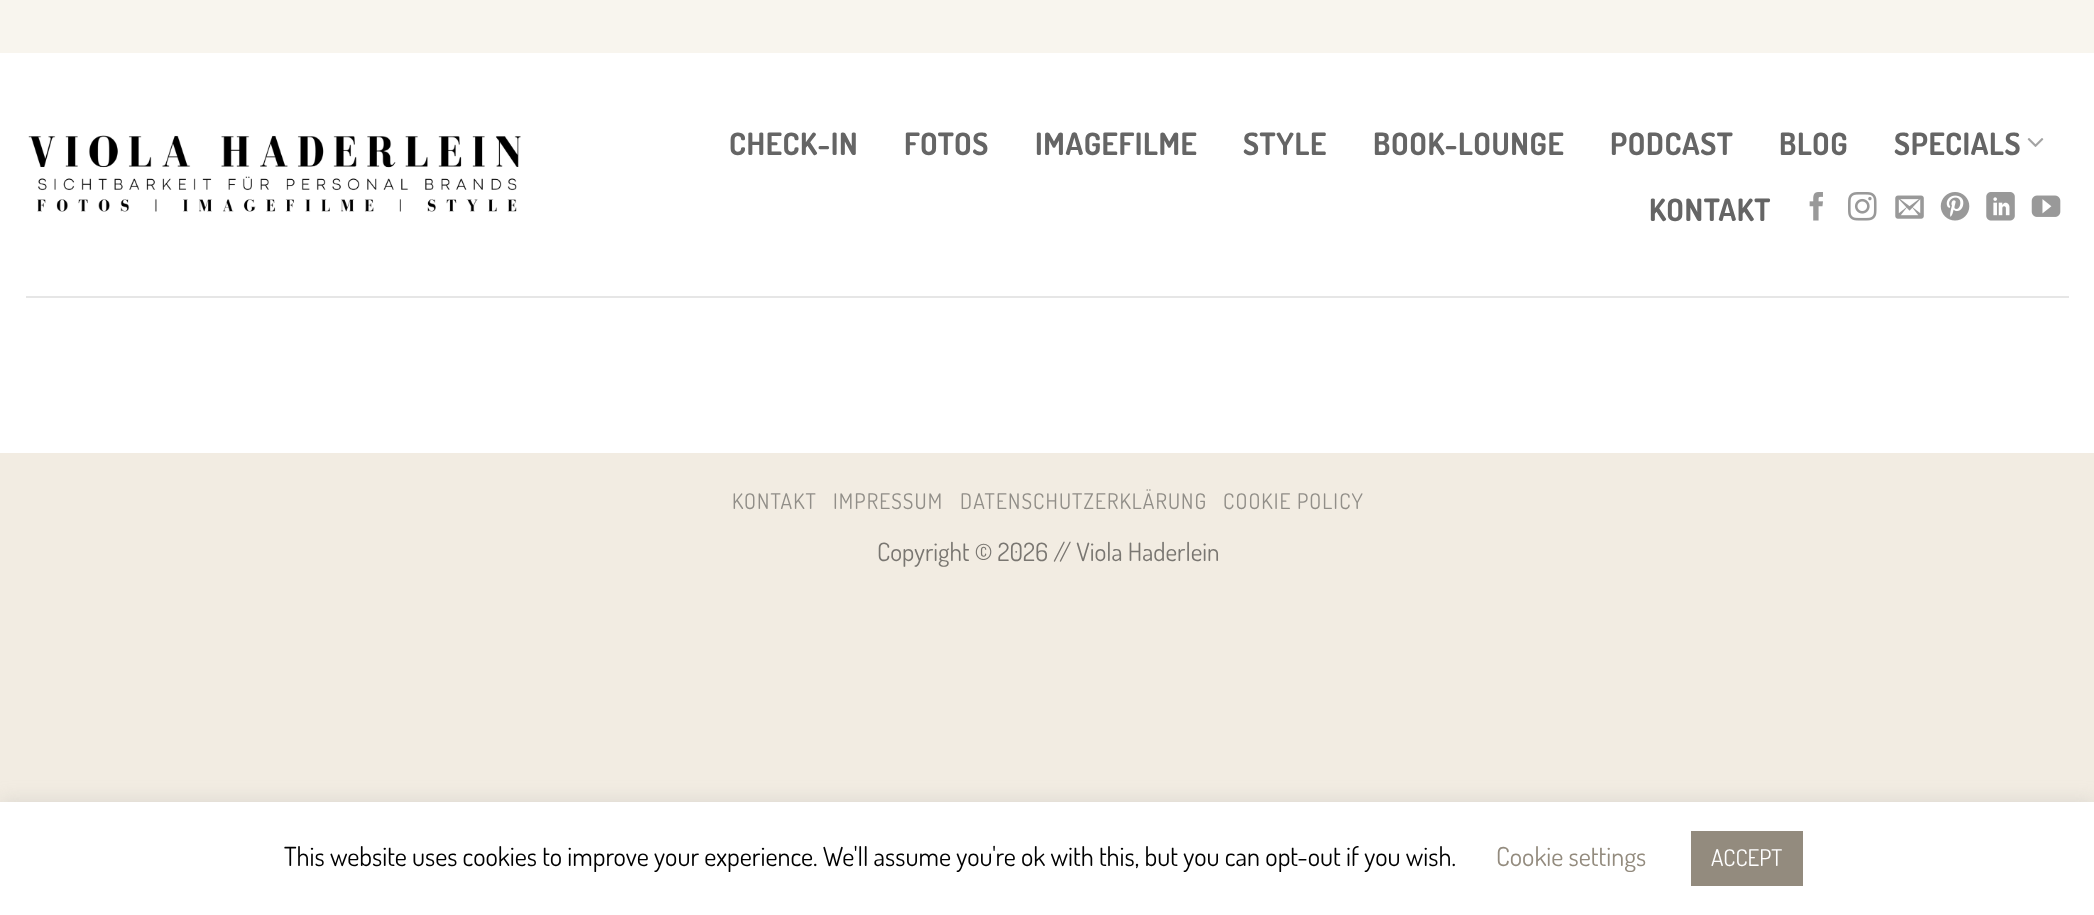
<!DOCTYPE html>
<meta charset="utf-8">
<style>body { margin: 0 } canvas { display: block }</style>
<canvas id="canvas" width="2094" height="915"></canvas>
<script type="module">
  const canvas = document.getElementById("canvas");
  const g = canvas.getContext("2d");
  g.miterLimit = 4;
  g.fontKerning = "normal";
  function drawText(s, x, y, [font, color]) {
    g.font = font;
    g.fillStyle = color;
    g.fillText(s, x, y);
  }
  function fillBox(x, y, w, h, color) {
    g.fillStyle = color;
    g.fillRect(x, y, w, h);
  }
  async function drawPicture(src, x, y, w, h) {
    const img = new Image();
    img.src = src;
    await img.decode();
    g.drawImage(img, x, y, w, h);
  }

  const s1 = ["bold 30.75px Dosis", "#656565"];
  const s2 = ["21.5px Dosis", "#918E88"];
  const s3 = ["25.25px Dosis", "#797671"];
  const s4 = ["26.25px Dosis", "#000000"];
  const s5 = ["26.25px Dosis", "#938B7E"];
  const s6 = ["23px Dosis", "#FFFFFF"];

  fillBox(0, 0, 2094, 915, "#F2ECE2");
  fillBox(0, 53, 2094, 400, "#FFFFFF");
  fillBox(0, 0, 2094, 53, "#F8F5EE");
  await drawPicture("pic1.png", 28, 135, 493, 77);
  g.letterSpacing = "0.6px";
  drawText("CHECK-IN", 729, 155, s1);
  drawText("FOTOS", 904, 155, s1);
  drawText("IMAGEFILME", 1035, 155, s1);
  drawText("STYLE", 1243, 155, s1);
  drawText("BOOK-LOUNGE", 1373, 155, s1);
  drawText("PODCAST", 1610, 155, s1);
  drawText("BLOG", 1779, 155, s1);
  drawText("SPECIALS", 1894, 155, s1);
  await drawPicture("pic2.png", 2027, 138, 17, 9);
  drawText("KONTAKT", 1649, 221, s1);
  await drawPicture("pic3.png", 1809, 192, 14, 29);
  await drawPicture("pic4.png", 1848, 192, 29, 29);
  await drawPicture("pic5.png", 1895, 195, 29, 24);
  await drawPicture("pic6.png", 1940, 192, 30, 29);
  await drawPicture("pic7.png", 1986, 192, 29, 29);
  await drawPicture("pic8.png", 2031, 195, 30, 22);
  fillBox(26, 296, 2043, 2, "#E6E6E6");
  g.letterSpacing = "1.1px";
  drawText("KONTAKT", 732, 509, s2);
  drawText("IMPRESSUM", 833, 509, s2);
  drawText("DATENSCHUTZERKLÄRUNG", 960, 509, s2);
  drawText("COOKIE POLICY", 1223, 509, s2);
  g.letterSpacing = "0px";
  drawText("Copyright © 2026 // Viola Haderlein", 877, 561, s3);
  g.fillStyle = "rgba(172, 171, 171, 0.3)";
  g.filter = "blur(9px)";
  g.beginPath();
  g.rect(0, 800, 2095, 114);
  g.fill();
  g.filter = "none";
  fillBox(0, 802, 2094, 113, "#FFFFFF");
  drawText("This website uses cookies to improve your experience. We'll assume you're ok with this, but you can opt-out if you wish.", 284, 866, s4);
  drawText("Cookie settings", 1496, 866, s5);
  fillBox(1691, 831, 112, 55, "#938B7E");
  drawText("ACCEPT", 1711, 866, s6);
</script>
